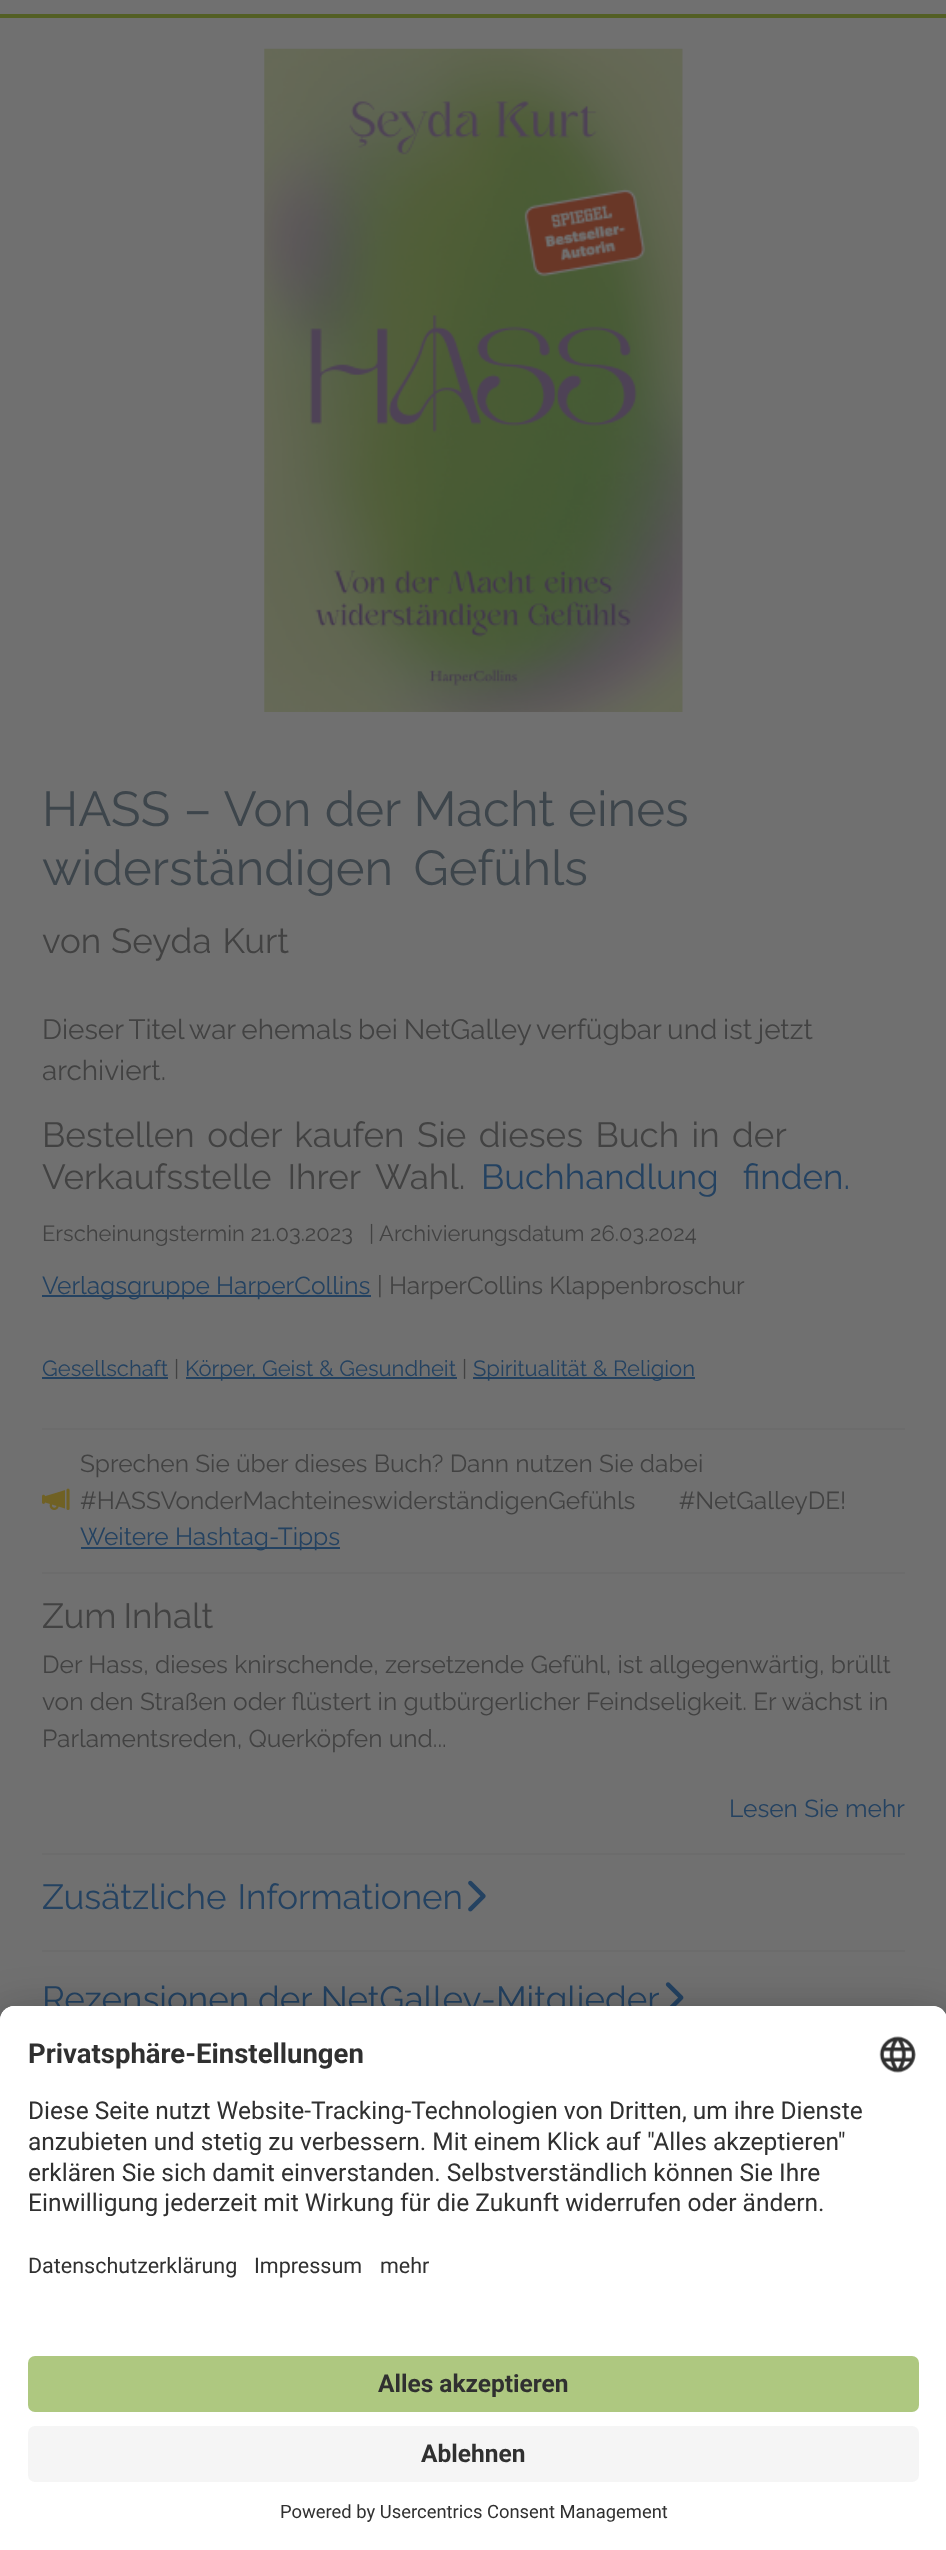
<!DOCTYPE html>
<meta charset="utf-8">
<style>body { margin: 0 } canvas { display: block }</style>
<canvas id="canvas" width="946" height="2550"></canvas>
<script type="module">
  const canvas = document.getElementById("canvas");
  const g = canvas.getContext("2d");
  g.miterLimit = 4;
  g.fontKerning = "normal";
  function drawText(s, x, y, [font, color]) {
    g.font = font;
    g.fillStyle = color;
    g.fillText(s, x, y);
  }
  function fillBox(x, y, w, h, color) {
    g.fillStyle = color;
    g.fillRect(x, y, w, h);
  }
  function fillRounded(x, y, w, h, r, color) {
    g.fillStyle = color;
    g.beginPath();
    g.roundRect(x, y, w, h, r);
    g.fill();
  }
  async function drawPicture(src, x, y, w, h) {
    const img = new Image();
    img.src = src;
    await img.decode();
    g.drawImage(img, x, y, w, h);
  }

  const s1 = ["49px Raleway", "#3D454B"];
  const s2 = ["35px Raleway", "#424242"];
  const s3 = ["27.9px Raleway", "#424242"];
  const s4 = ["35px Raleway", "#244261"];
  const s5 = ["22px Raleway", "#424242"];
  const s6 = ["24.5px Raleway", "#244261"];
  const s7 = ["24.5px Raleway", "#424242"];
  const s8 = ["22px Raleway", "#244261"];
  const s9 = ["bold 27.5px Roboto", "#303030"];
  const s10 = ["24.5px Roboto", "#303030"];
  const s11 = ["21.5px Roboto", "#303030"];
  const s12 = ["bold 24.5px Roboto", "#303030"];
  const s13 = ["18.4px Roboto", "#303030"];

  fillBox(0, 0, 946, 2550, "#707070");
  fillBox(0, 14, 946, 4, "#535F24");
  await drawPicture("pic1.png", 264, 48, 419, 664);
  g.wordSpacing = "1px";
  drawText("HASS – Von der Macht eines", 42, 826, s1);
  g.wordSpacing = "8px";
  drawText("widerständigen Gefühls", 42, 885, s1);
  g.wordSpacing = "0px";
  drawText("von", 42, 953, s2);
  g.wordSpacing = "2px";
  drawText("Seyda Kurt", 111, 953, s2);
  g.wordSpacing = "-1.25px";
  drawText("Dieser Titel war ehemals bei NetGalley verfügbar und ist jetzt", 42, 1039, s3);
  g.wordSpacing = "0px";
  drawText("archiviert.", 42, 1080, s3);
  g.wordSpacing = "3.5px";
  drawText("Bestellen oder kaufen Sie dieses Buch in der", 42, 1147, s2);
  g.wordSpacing = "7px";
  drawText("Verkaufsstelle Ihrer Wahl.", 42, 1189, s2);
  g.wordSpacing = "15px";
  drawText("Buchhandlung finden.", 481, 1189, s4);
  g.wordSpacing = "0px";
  drawText("Erscheinungstermin 21.03.2023", 42, 1241, s5);
  drawText("| Archivierungsdatum 26.03.2024", 369, 1241, s5);
  fillBox(42, 1295, 329, 2, "#244261");
  drawText("Verlagsgruppe HarperCollins", 42, 1294, s6);
  drawText("| HarperCollins Klappenbroschur", 377, 1294, s7);
  drawText("Gesellschaft", 42, 1376, s8);
  fillBox(42, 1377, 126, 2, "#244261");
  drawText("|", 174, 1376, s5);
  fillBox(186, 1377, 271, 2, "#244261");
  drawText("Körper, Geist & Gesundheit", 185, 1376, s8);
  drawText("|", 462, 1376, s5);
  fillBox(473, 1377, 222, 2, "#244261");
  drawText("Spiritualität & Religion", 473, 1376, s8);
  fillBox(42, 1428, 863, 2, "#6C6C6C");
  await drawPicture("pic2.png", 42, 1488, 28, 22);
  drawText("Sprechen Sie über dieses Buch? Dann nutzen Sie dabei", 80, 1472, s7);
  g.wordSpacing = "37px";
  drawText("#HASSVonderMachteineswiderständigenGefühls #NetGalleyDE", 80, 1509, s7);
  g.wordSpacing = "0px";
  drawText("!", 840, 1509, s7);
  fillBox(81, 1547, 259, 2, "#244261");
  drawText("Weitere Hashtag-Tipps", 80, 1545, s6);
  fillBox(42, 1572, 863, 2, "#6C6C6C");
  g.wordSpacing = "-2px";
  drawText("Zum Inhalt", 42, 1628, s2);
  g.wordSpacing = "0px";
  drawText("Der Hass, dieses knirschende, zersetzende Gefühl, ist allgegenwärtig, brüllt", 42, 1673, s7);
  drawText("von den Straßen oder flüstert in gutbürgerlicher Feindseligkeit. Er wächst in", 42, 1710, s7);
  drawText("Parlamentsreden, Querköpfen und...", 42, 1747, s7);
  drawText("Lesen Sie mehr", 729, 1817, s6);
  fillBox(42, 1853, 863, 2, "#6C6C6C");
  g.wordSpacing = "2px";
  drawText("Zusätzliche Informationen", 42, 1909, s4);
  await drawPicture("pic3.png", 468, 1880, 18, 32);
  fillBox(42, 1950, 863, 2, "#6C6C6C");
  g.wordSpacing = "0px";
  drawText("Rezensionen der NetGalley-Mitglieder", 42, 2011, s4);
  await drawPicture("pic4.png", 665, 1982, 19, 24);
  g.fillStyle = "rgba(0, 0, 0, 0.3)";
  g.filter = "blur(24.5px)";
  g.beginPath();
  g.roundRect(0, 2041, 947, 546, 14);
  g.fill();
  g.filter = "none";
  g.fillStyle = "rgba(0, 0, 0, 0.22)";
  g.filter = "blur(23px)";
  g.beginPath();
  g.roundRect(0, 2014, 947, 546, 14);
  g.fill();
  g.filter = "none";
  g.fillStyle = "#FFFFFF";
  g.beginPath();
  g.moveTo(14, 2006);
  g.lineTo(933, 2006);
  g.bezierCurveTo(940.5, 2006, 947, 2012.5, 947, 2020);
  g.lineTo(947, 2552);
  g.lineTo(0, 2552);
  g.lineTo(0, 2020);
  g.bezierCurveTo(0, 2012.5, 6.5, 2006, 14, 2006);
  g.closePath();
  g.fill();
  g.beginPath();
  g.moveTo(14, 2006);
  g.lineTo(933, 2006);
  g.bezierCurveTo(940.5, 2006, 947, 2012.5, 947, 2020);
  g.lineTo(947, 2335);
  g.lineTo(0, 2335);
  g.lineTo(0, 2020);
  g.bezierCurveTo(0, 2012.5, 6.5, 2006, 14, 2006);
  g.closePath();
  g.fill();
  drawText("Privatsphäre-Einstellungen", 28, 2063, s9);
  await drawPicture("pic5.png", 879, 2036, 37, 37);
  drawText("Diese Seite nutzt Website-Tracking-Technologien von Dritten, um ihre Dienste", 28, 2119, s10);
  drawText("anzubieten und stetig zu verbessern. Mit einem Klick auf \"Alles akzeptieren\"", 28, 2150, s10);
  drawText("erklären Sie sich damit einverstanden. Selbstverständlich können Sie Ihre", 28, 2181, s10);
  drawText("Einwilligung jederzeit mit Wirkung für die Zukunft widerrufen oder ändern.", 28, 2211, s10);
  drawText("Datenschutzerklärung", 28, 2273, s11);
  drawText("Impressum", 254, 2273, s11);
  drawText("mehr", 380, 2273, s11);
  fillRounded(28, 2356, 891, 56, 7, "#AEC880");
  drawText("Alles akzeptieren", 378, 2392, s12);
  fillRounded(28, 2426, 891, 56, 7, "#F5F5F5");
  drawText("Ablehnen", 421, 2462, s12);
  drawText("Powered by Usercentrics Consent Management", 280, 2518, s13);
</script>
